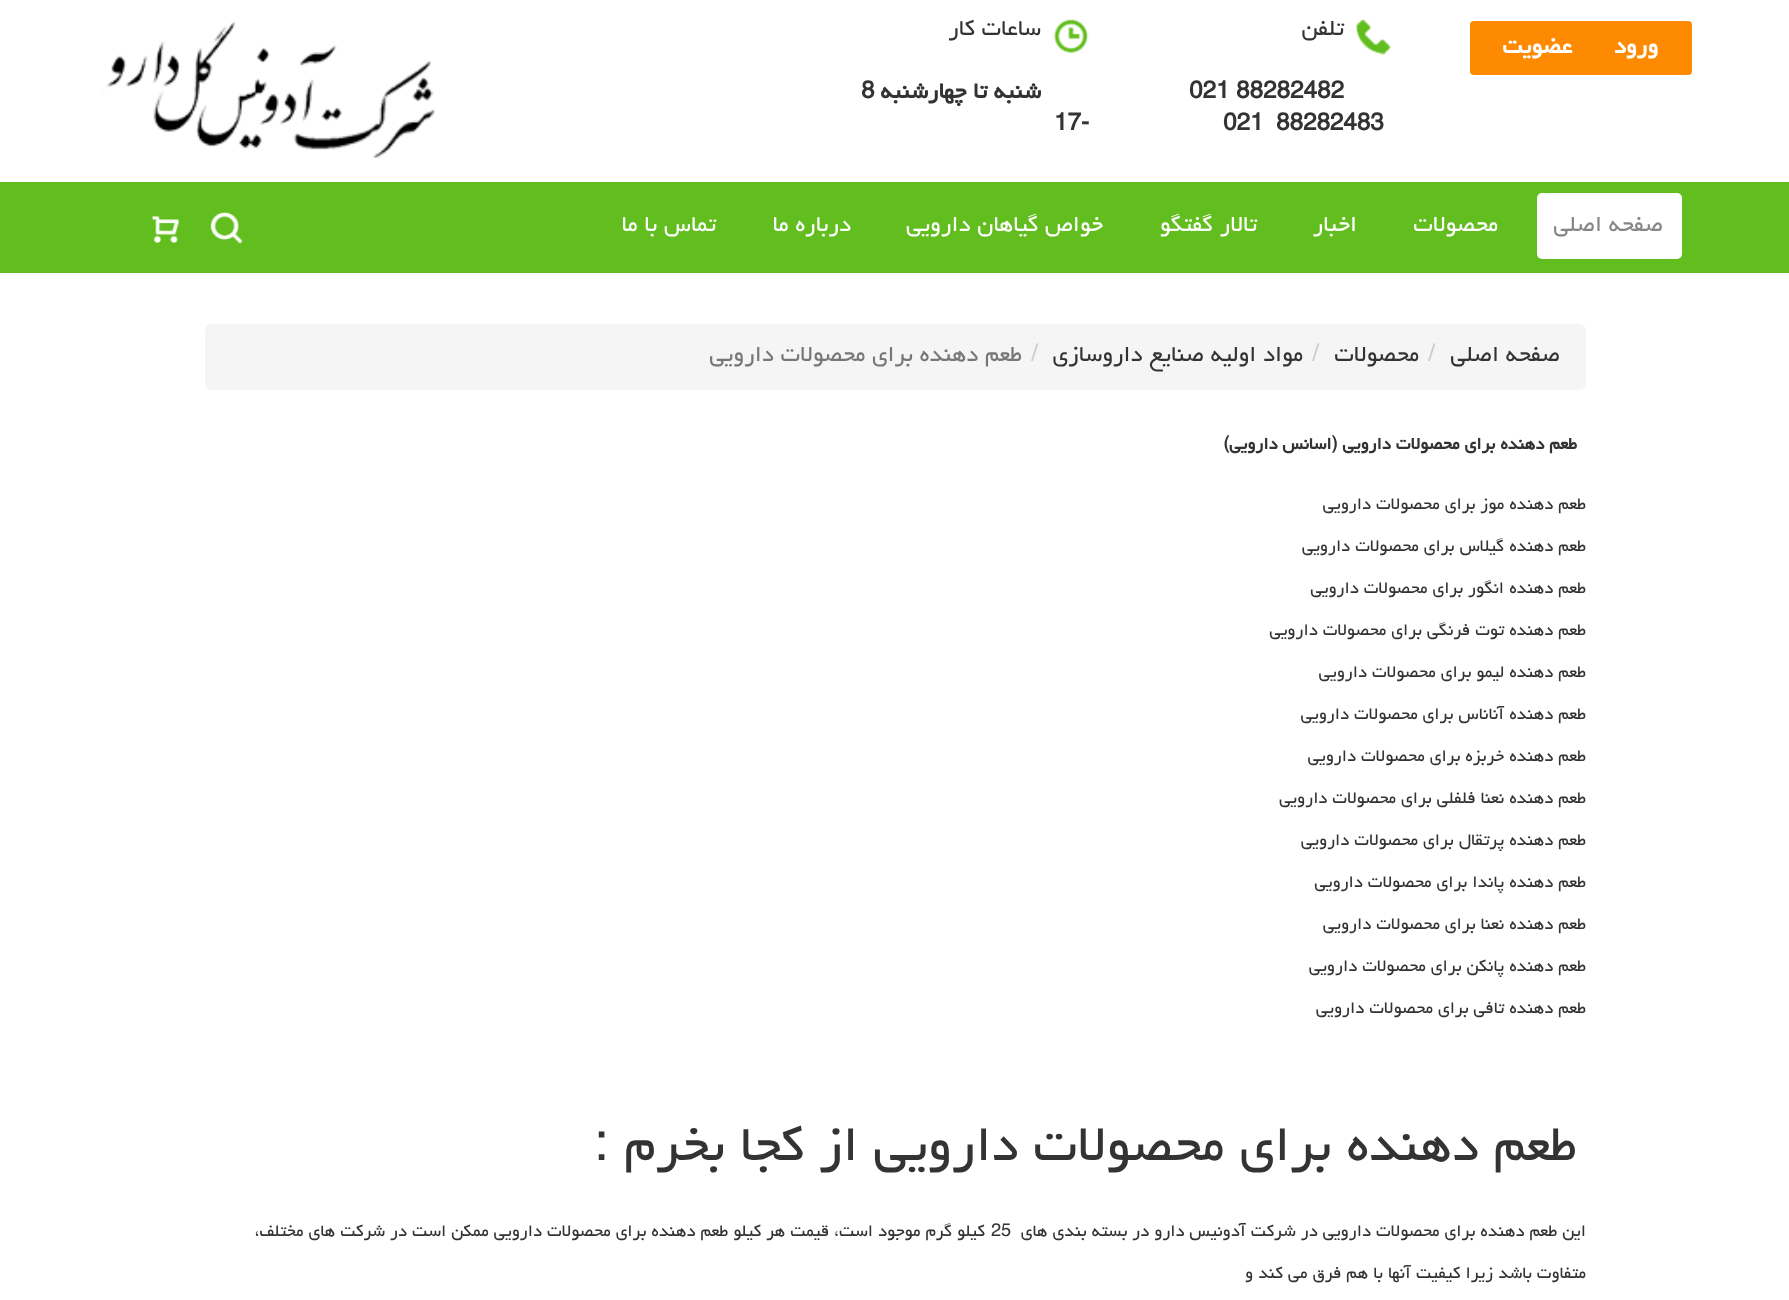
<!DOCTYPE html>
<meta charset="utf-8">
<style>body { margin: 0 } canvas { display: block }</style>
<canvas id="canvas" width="1789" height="1300"></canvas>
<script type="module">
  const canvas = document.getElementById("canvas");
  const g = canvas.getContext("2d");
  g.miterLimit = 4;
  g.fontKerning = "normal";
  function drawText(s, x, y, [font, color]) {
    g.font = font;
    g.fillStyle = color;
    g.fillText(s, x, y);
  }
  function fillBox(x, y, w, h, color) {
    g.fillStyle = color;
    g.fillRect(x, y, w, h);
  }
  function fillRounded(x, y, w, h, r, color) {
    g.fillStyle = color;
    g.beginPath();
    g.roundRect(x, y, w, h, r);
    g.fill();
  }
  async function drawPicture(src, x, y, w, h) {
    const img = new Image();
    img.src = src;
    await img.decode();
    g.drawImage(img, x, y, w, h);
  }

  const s1 = ["bold 28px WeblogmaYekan", "#FFFFFF"];
  const s2 = ["28px WeblogmaYekan", "#333333"];
  const s3 = ["bold 28px WeblogmaYekan", "#333333"];
  const s4 = ["28px WeblogmaYekan", "#868686"];
  const s5 = ["28px WeblogmaYekan", "#FFFFFF"];
  const s6 = ["28px WeblogmaYekan", "#CCCCCC"];
  const s7 = ["28px WeblogmaYekan", "#777777"];
  const s8 = ["bold 21px WeblogmaYekan", "#333333"];
  const s9 = ["21px WeblogmaYekan", "#333333"];
  const s10 = ["63px WeblogmaYekan", "#333333"];

  fillBox(0, 0, 1789, 1300, "#FFFFFF");
  fillRounded(1470, 21, 222, 54, 4, "#FE8A01");
  g.direction = "rtl";
  drawText("ورود", 1658, 53, s1);
  drawText("عضویت", 1572, 53, s1);
  await drawPicture("pic1.png", 1356, 19, 36, 36);
  drawText("تلفن", 1344, 35, s2);
  g.direction = "ltr";
  drawText("021 88282482", 1189, 98, s3);
  drawText("88282483", 1276, 130, s3);
  drawText("021", 1223, 130, s3);
  await drawPicture("pic2.png", 1053, 19, 36, 35);
  g.direction = "rtl";
  drawText("ساعات کار", 1041, 35, s2);
  drawText("شنبه تا چهارشنبه", 1041, 98, s3);
  g.direction = "ltr";
  drawText("8", 861, 98, s3);
  drawText("17-", 1054, 130, s3);
  await drawPicture("pic3.png", 101, 22, 334, 136);
  fillBox(0, 182, 1789, 91, "#62BE1E");
  fillRounded(1537, 193, 145, 66, 5, "#FFFFFF");
  g.direction = "rtl";
  drawText("صفحه اصلي", 1663, 231, s4);
  drawText("محصولات", 1498, 231, s5);
  drawText("اخبار", 1357, 231, s5);
  drawText("تالار گفتگو", 1257, 231, s5);
  drawText("خواص گیاهان دارویی", 1103, 231, s5);
  drawText("درباره ما", 851, 231, s5);
  drawText("تماس با ما", 716, 231, s5);
  await drawPicture("pic4.png", 210, 211, 33, 33);
  await drawPicture("pic5.png", 151, 215, 29, 28);
  fillRounded(205, 324, 1381, 66, 7, "#F5F5F5");
  drawText("صفحه اصلی", 1560, 361, s2);
  g.direction = "ltr";
  drawText("/", 1428, 361, s6);
  g.direction = "rtl";
  drawText("محصولات", 1419, 361, s2);
  g.direction = "ltr";
  drawText("/", 1312, 361, s6);
  g.direction = "rtl";
  drawText("مواد اولیه صنایع داروسازی", 1303, 361, s2);
  g.direction = "ltr";
  drawText("/", 1031, 361, s6);
  g.direction = "rtl";
  drawText("طعم دهنده برای محصولات دارویی", 1022, 361, s7);
  drawText("طعم دهنده برای محصولات دارویی (اسانس دارویی)", 1577, 449, s8);
  drawText("طعم دهنده موز برای محصولات دارویی", 1586, 509, s9);
  drawText("طعم دهنده گیلاس برای محصولات دارویی", 1586, 551, s9);
  drawText("طعم دهنده انگور برای محصولات دارویی", 1586, 593, s9);
  drawText("طعم دهنده توت فرنگی برای محصولات دارویی", 1586, 635, s9);
  drawText("طعم دهنده لیمو برای محصولات دارویی", 1586, 677, s9);
  drawText("طعم دهنده آناناس برای محصولات دارویی", 1586, 719, s9);
  drawText("طعم دهنده خربزه برای محصولات دارویی", 1586, 761, s9);
  drawText("طعم دهنده نعنا فلفلی برای محصولات دارویی", 1586, 803, s9);
  drawText("طعم دهنده پرتقال برای محصولات دارویی", 1586, 845, s9);
  drawText("طعم دهنده پاندا برای محصولات دارویی", 1586, 887, s9);
  drawText("طعم دهنده نعنا برای محصولات دارویی", 1586, 929, s9);
  drawText("طعم دهنده پانکن برای محصولات دارویی", 1586, 971, s9);
  drawText("طعم دهنده تافی برای محصولات دارویی", 1586, 1013, s9);
  drawText("طعم دهنده برای محصولات دارویی از کجا بخرم :", 1577, 1160, s10);
  drawText("اين طعم دهنده برای محصولات دارویی در شرکت آدونيس دارو در بسته بندي هاي", 1586, 1236, s9);
  g.direction = "ltr";
  drawText("25", 991, 1236, s9);
  g.direction = "rtl";
  drawText("کیلو گرم موجود است، قيمت هر کیلو طعم دهنده برای محصولات دارویی ممکن است در شرکت هاي مختلف،", 985, 1236, s9);
  drawText("متفاوت باشد زيرا کيفيت آنها با هم فرق مي کند و", 1586, 1278, s9);
</script>
